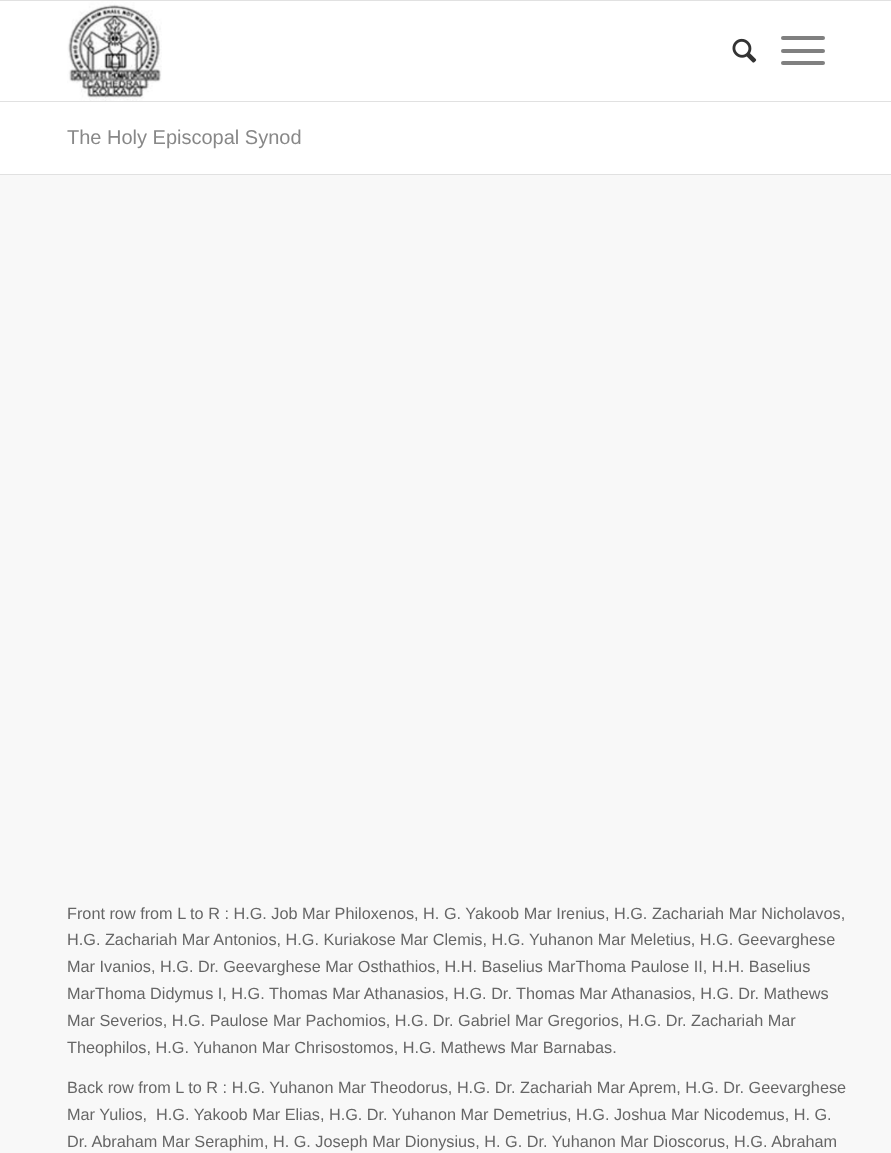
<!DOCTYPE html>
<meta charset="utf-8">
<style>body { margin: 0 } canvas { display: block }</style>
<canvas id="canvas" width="891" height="1153"></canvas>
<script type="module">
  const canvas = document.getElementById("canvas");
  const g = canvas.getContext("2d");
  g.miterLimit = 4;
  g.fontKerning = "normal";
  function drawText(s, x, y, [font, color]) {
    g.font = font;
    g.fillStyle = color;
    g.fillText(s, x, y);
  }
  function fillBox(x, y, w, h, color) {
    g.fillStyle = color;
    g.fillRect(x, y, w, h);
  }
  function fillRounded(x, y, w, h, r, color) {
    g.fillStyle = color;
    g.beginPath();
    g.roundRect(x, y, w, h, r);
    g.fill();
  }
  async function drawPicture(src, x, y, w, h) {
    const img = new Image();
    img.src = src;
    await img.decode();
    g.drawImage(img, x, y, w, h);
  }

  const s1 = ["20px Liberation Sans", "#888888"];
  const s2 = ["16.25px Liberation Sans", "#666666"];

  fillBox(0, 0, 891, 1153, "#FFFFFF");
  fillBox(0, 0, 891, 1, "#E1E1E1");
  fillBox(0, 101, 891, 1, "#E1E1E1");
  await drawPicture("pic1.png", 67, 1, 95, 100);
  await drawPicture("pic2.png", 732, 38, 25, 25);
  fillRounded(781, 49, 44, 4, 2, "#808080");
  fillRounded(781, 36, 44, 4, 2, "#808080");
  fillRounded(781, 61, 44, 4, 2, "#808080");
  drawText("The Holy Episcopal Synod", 67, 144, s1);
  fillBox(0, 175, 891, 978, "#F8F8F8");
  fillBox(0, 174, 891, 1, "#E1E1E1");
  drawText("Front row from L to R : H.G. Job Mar Philoxenos, H. G. Yakoob Mar Irenius, H.G. Zachariah Mar Nicholavos,", 67, 919, s2);
  drawText("H.G. Zachariah Mar Antonios, H.G. Kuriakose Mar Clemis, H.G. Yuhanon Mar Meletius, H.G. Geevarghese", 67, 945, s2);
  drawText("Mar Ivanios, H.G. Dr. Geevarghese Mar Osthathios, H.H. Baselius MarThoma Paulose II, H.H. Baselius", 67, 972, s2);
  drawText("MarThoma Didymus I, H.G. Thomas Mar Athanasios, H.G. Dr. Thomas Mar Athanasios, H.G. Dr. Mathews", 67, 999, s2);
  drawText("Mar Severios, H.G. Paulose Mar Pachomios, H.G. Dr. Gabriel Mar Gregorios, H.G. Dr. Zachariah Mar", 67, 1026, s2);
  drawText("Theophilos, H.G. Yuhanon Mar Chrisostomos, H.G. Mathews Mar Barnabas.", 67, 1053, s2);
  drawText("Back row from L to R : H.G. Yuhanon Mar Theodorus, H.G. Dr. Zachariah Mar Aprem, H.G. Dr. Geevarghese", 67, 1093, s2);
  drawText("Mar Yulios,  H.G. Yakoob Mar Elias, H.G. Dr. Yuhanon Mar Demetrius, H.G. Joshua Mar Nicodemus, H. G.", 67, 1120, s2);
  drawText("Dr. Abraham Mar Seraphim, H. G. Joseph Mar Dionysius, H. G. Dr. Yuhanon Mar Dioscorus, H.G. Abraham", 67, 1147, s2);
</script>
